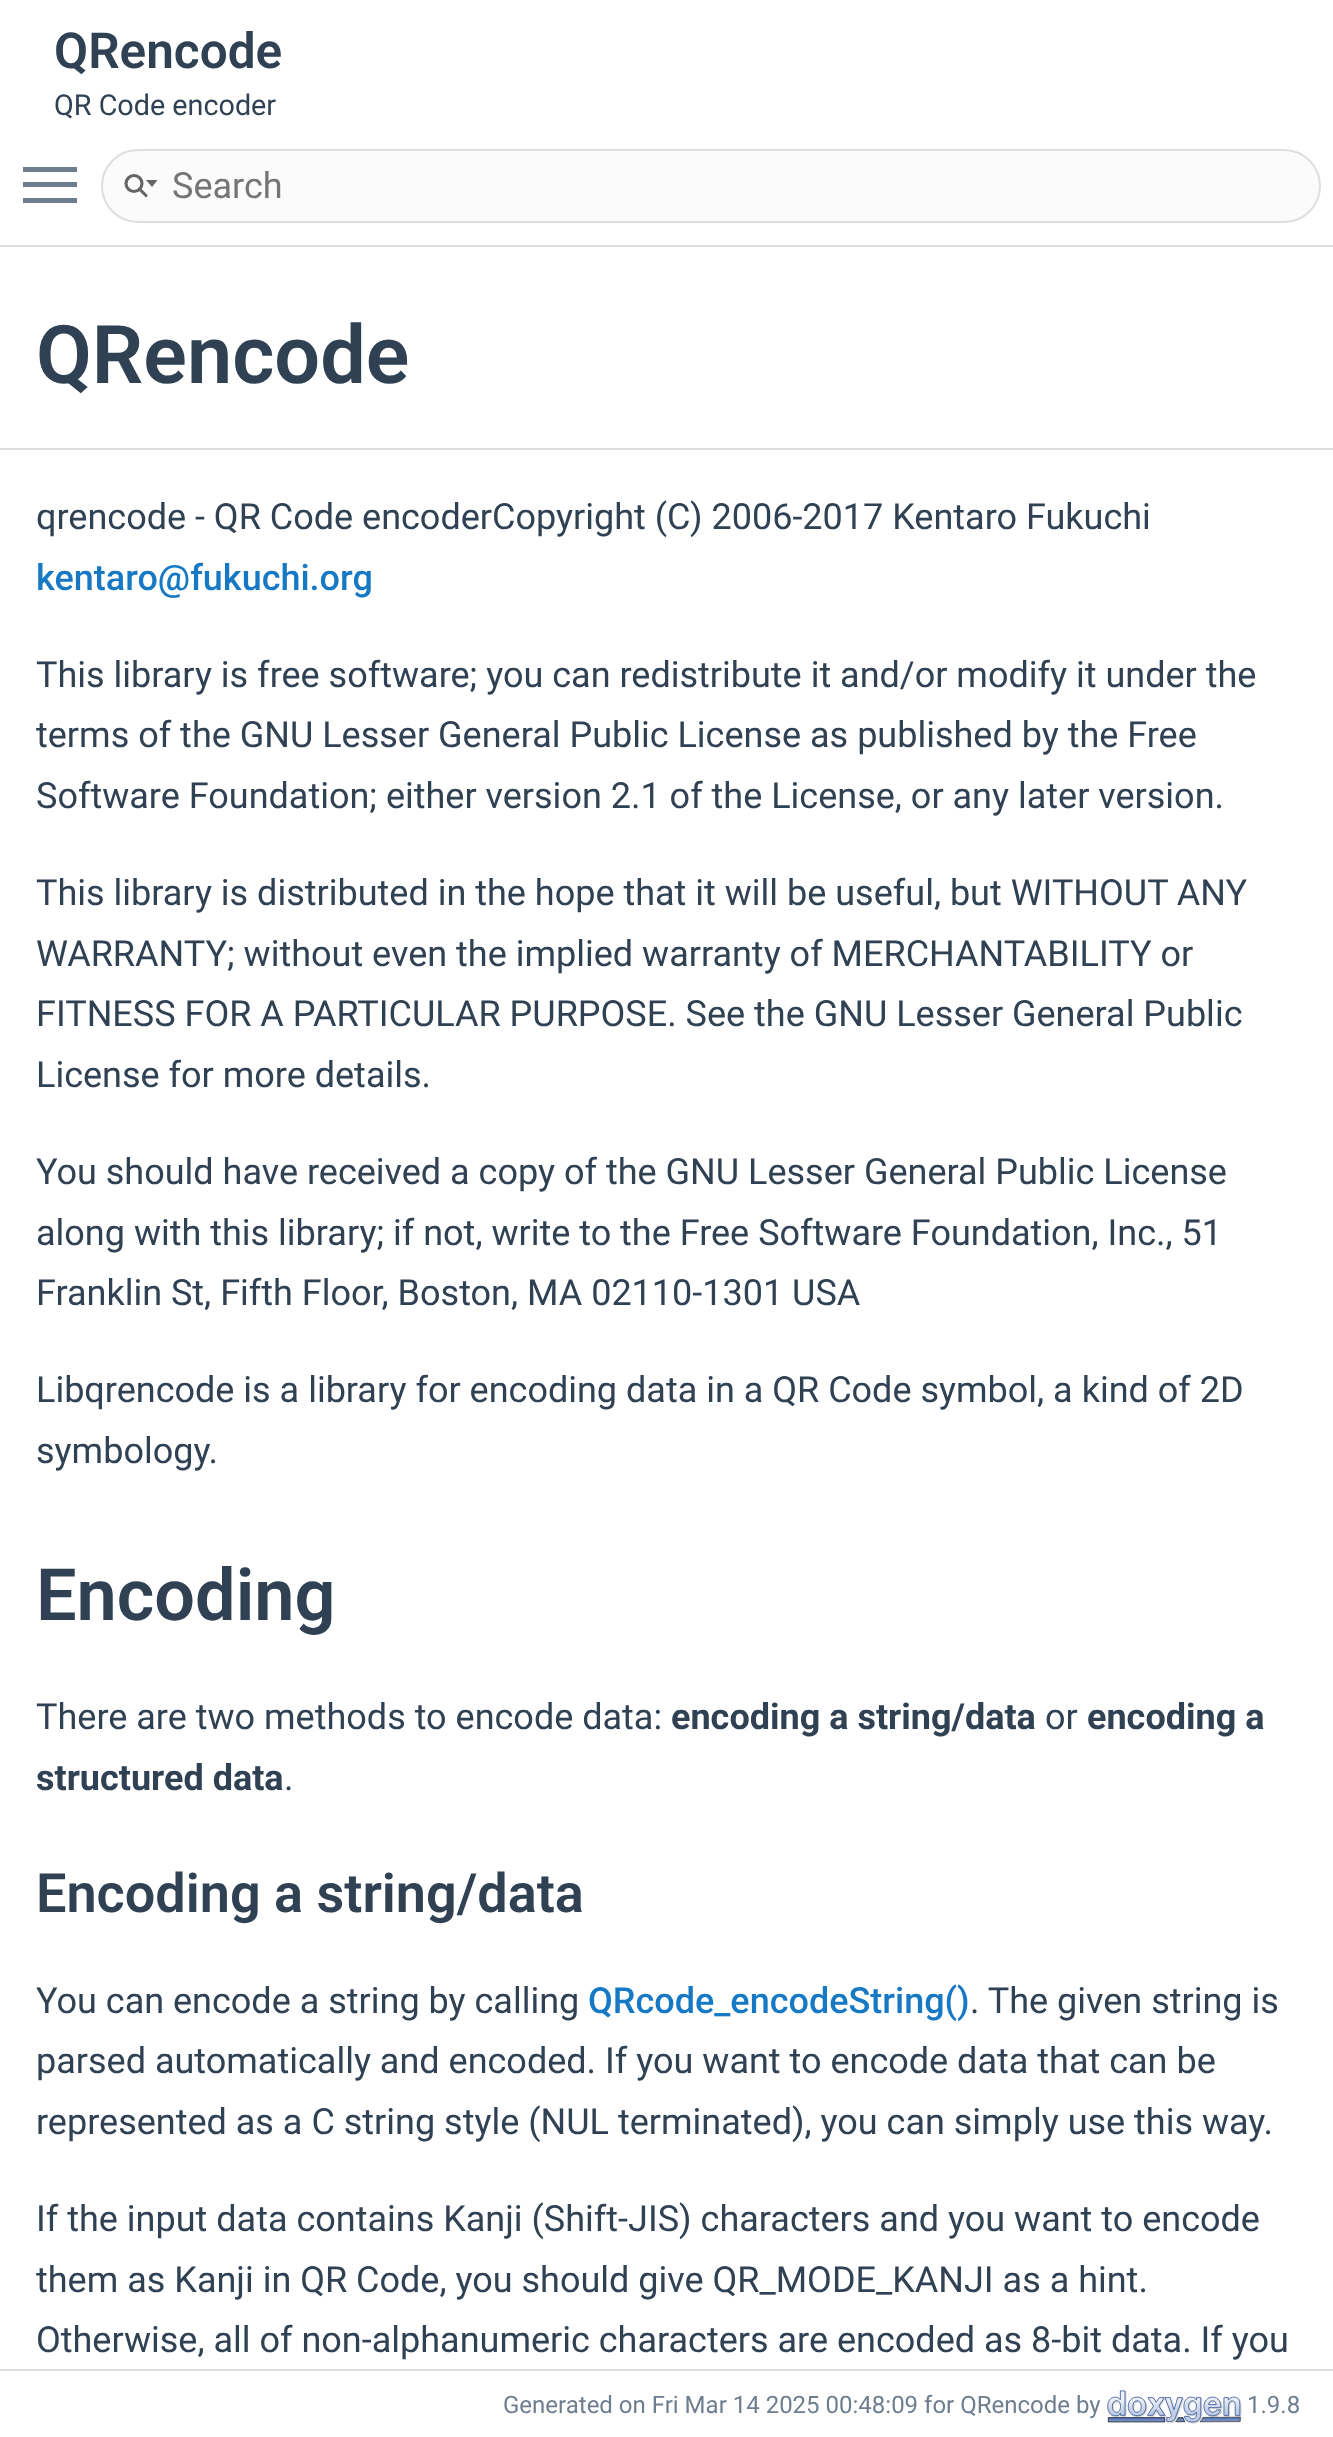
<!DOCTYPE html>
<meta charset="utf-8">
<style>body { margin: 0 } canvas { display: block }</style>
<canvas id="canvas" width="1333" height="2437"></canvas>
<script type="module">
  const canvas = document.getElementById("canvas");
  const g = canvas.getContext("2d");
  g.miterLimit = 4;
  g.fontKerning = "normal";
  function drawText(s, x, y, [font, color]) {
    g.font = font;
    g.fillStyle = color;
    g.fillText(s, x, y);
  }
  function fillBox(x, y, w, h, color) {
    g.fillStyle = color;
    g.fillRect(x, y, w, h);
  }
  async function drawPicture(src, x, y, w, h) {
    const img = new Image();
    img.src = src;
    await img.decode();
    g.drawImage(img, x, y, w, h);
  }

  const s1 = ["600 49.5px Roboto", "#2F4153"];
  const s2 = ["28.75px Roboto", "#2F4153"];
  const s3 = ["36px Roboto", "#757575"];
  const s4 = ["600 81px Roboto", "#2F4153"];
  const s5 = ["36px Roboto", "#2F4153"];
  const s6 = ["500 36px Roboto", "#1779C4"];
  const s7 = ["600 72px Roboto", "#2F4153"];
  const s8 = ["bold 36px Roboto", "#2F4153"];
  const s9 = ["600 54px Roboto", "#2F4153"];
  const s10 = ["24px Roboto", "#6F7E8E"];

  fillBox(0, 0, 1333, 2437, "#FFFFFF");
  fillBox(0, 245, 1333, 2, "#DEDEDE");
  drawText("QRencode", 54, 68, s1);
  drawText("QR Code encoder", 54, 115, s2);
  fillBox(23, 182, 54, 5, "#6F7E8E");
  fillBox(23, 167, 54, 5, "#6F7E8E");
  fillBox(23, 198, 54, 5, "#6F7E8E");
  g.fillStyle = "#FBFBFB";
  g.beginPath();
  g.roundRect(102, 150, 1218, 72, 36);
  g.fill();
  g.strokeStyle = "#DEDEDE";
  g.lineWidth = 2;
  g.stroke();
  g.beginPath();
  g.arc(134, 183.5, 8, 0, Math.PI * 2);
  g.strokeStyle = "#656565";
  g.lineWidth = 3.1;
  g.stroke();
  g.fillStyle = "#656565";
  g.beginPath();
  g.moveTo(146, 180);
  g.lineTo(152, 187);
  g.lineTo(157.5, 180);
  g.closePath();
  g.fill();
  g.beginPath();
  g.moveTo(139.5, 189);
  g.lineTo(146, 195.5);
  g.lineCap = "round";
  g.stroke();
  drawText("Search", 172, 198, s3);
  fillBox(0, 448, 1333, 2, "#DEDEDE");
  drawText("QRencode", 36, 383, s4);
  drawText("qrencode - QR Code encoderCopyright (C) 2006-2017 Kentaro Fukuchi", 36, 529, s5);
  drawText("kentaro@fukuchi.org", 36, 590, s6);
  drawText("This library is free software; you can redistribute it and/or modify it under the", 36, 687, s5);
  drawText("terms of the GNU Lesser General Public License as published by the Free", 36, 747, s5);
  drawText("Software Foundation; either version 2.1 of the License, or any later version.", 36, 808, s5);
  drawText("This library is distributed in the hope that it will be useful, but WITHOUT ANY", 36, 905, s5);
  drawText("WARRANTY; without even the implied warranty of MERCHANTABILITY or", 36, 966, s5);
  drawText("FITNESS FOR A PARTICULAR PURPOSE. See the GNU Lesser General Public", 36, 1026, s5);
  drawText("License for more details.", 36, 1087, s5);
  drawText("You should have received a copy of the GNU Lesser General Public License", 36, 1184, s5);
  drawText("along with this library; if not, write to the Free Software Foundation, Inc., 51", 36, 1245, s5);
  drawText("Franklin St, Fifth Floor, Boston, MA 02110-1301 USA", 36, 1305, s5);
  drawText("Libqrencode is a library for encoding data in a QR Code symbol, a kind of 2D", 36, 1402, s5);
  drawText("symbology.", 36, 1463, s5);
  drawText("Encoding", 36, 1620, s7);
  drawText("There are two methods to encode data:", 36, 1729, s5);
  drawText("encoding a string/data", 671, 1729, s8);
  drawText("or", 1045, 1729, s5);
  drawText("encoding a", 1087, 1729, s8);
  drawText("structured data", 36, 1790, s8);
  drawText(".", 284, 1790, s5);
  drawText("Encoding a string/data", 36, 1912, s9);
  drawText("You can encode a string by calling", 36, 2013, s5);
  drawText("QRcode_encodeString()", 588, 2013, s6);
  drawText(". The given string is", 970, 2013, s5);
  drawText("parsed automatically and encoded. If you want to encode data that can be", 36, 2073, s5);
  drawText("represented as a C string style (NUL terminated), you can simply use this way.", 36, 2134, s5);
  drawText("If the input data contains Kanji (Shift-JIS) characters and you want to encode", 36, 2231, s5);
  drawText("them as Kanji in QR Code, you should give QR_MODE_KANJI as a hint.", 36, 2292, s5);
  drawText("Otherwise, all of non-alphanumeric characters are encoded as 8-bit data. If you", 36, 2352, s5);
  fillBox(0, 2369, 1333, 2, "#DEDEDE");
  drawText("Generated on Fri Mar 14 2025 00:48:09 for QRencode by", 503, 2413, s10);
  await drawPicture("pic1.png", 1107, 2390, 135, 34);
  drawText("1.9.8", 1247, 2413, s10);
</script>
